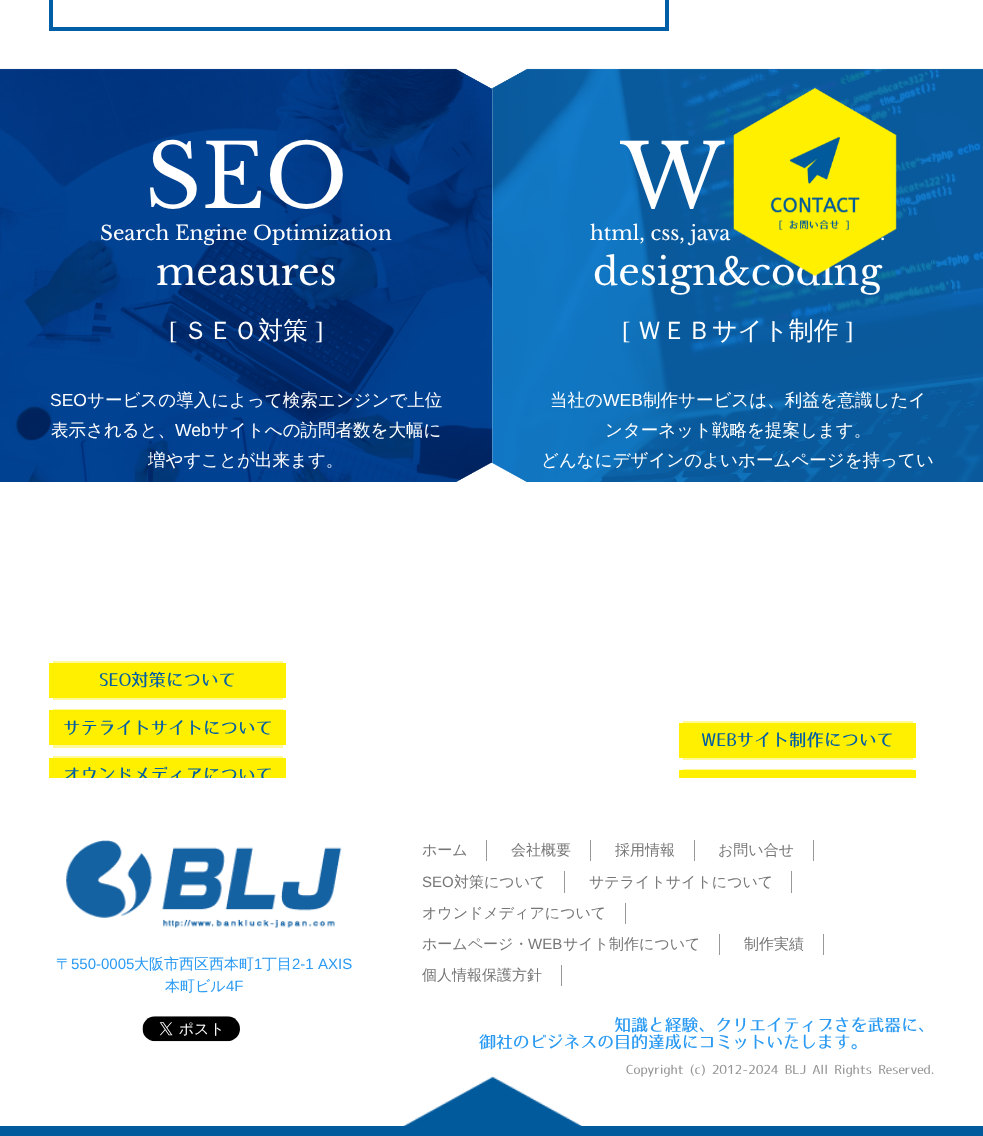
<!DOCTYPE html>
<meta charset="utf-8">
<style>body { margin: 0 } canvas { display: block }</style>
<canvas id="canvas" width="983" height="1136"></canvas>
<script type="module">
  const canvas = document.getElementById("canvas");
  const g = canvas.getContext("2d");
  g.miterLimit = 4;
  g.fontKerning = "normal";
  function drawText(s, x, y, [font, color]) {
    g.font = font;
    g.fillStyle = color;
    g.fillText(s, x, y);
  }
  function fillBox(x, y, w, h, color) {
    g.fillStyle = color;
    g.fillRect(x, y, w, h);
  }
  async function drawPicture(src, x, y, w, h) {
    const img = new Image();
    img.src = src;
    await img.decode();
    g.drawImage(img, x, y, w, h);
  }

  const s1 = ["20px Libre Baskerville", "#FFFFFF"];
  const s2 = ["37.5px Libre Baskerville", "#FFFFFF"];
  const s3 = ["87.5px Libre Baskerville", "#FFFFFF"];
  const s4 = ["25px Liberation Serif", "#FFFFFF"];
  const s5 = ["500 25px WenQuanYi Zen Hei", "#FFFFFF"];
  const s6 = ["17.5px Liberation Sans", "#FFFFFF"];
  const s7 = ["500 17.5px WenQuanYi Zen Hei", "#FFFFFF"];
  const s8 = ["17.5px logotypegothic", "#005EA6"];
  const s9 = ["500 15px WenQuanYi Zen Hei", "#2A9AF2"];
  const s10 = ["15px Liberation Sans", "#2A9AF2"];
  const s11 = ["500 15px WenQuanYi Zen Hei", "#767676"];
  const s12 = ["15px Liberation Sans", "#767676"];
  const s13 = ["16.9px logotypegothic", "#2A9AF2"];
  const s14 = ["12.5px logotypegothic", "#969696"];

  fillBox(0, 0, 983, 1136, "#FFFFFF");
  fillBox(683, 769, 230, 1, "#FFF999");
  fillBox(683, 721, 230, 39, "#FFF999");
  fillBox(53, 756, 230, 2, "#FFF999");
  fillBox(53, 709, 230, 39, "#FFF999");
  fillBox(53, 661, 230, 39, "#FFF999");
  await drawPicture("pic2.png", 0, 68, 493, 414);
  await drawPicture("pic3.png", 492, 68, 491, 414);
  drawText(".", 880, 240, s1);
  drawText("design&coding", 593, 285, s2);
  await drawPicture("pic1.png", 733, 88, 164, 189);
  g.strokeStyle = "#005EA6";
  g.lineWidth = 4;
  g.strokeRect(51, -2, 616, 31);
  drawText("SEO", 145, 208, s3);
  drawText("Search Engine Optimization", 100, 240, s1);
  drawText("measures", 156, 285, s2);
  drawText("[", 169, 339, s4);
  drawText("ＳＥＯ対策", 183, 339, s5);
  drawText("]", 315, 339, s4);
  drawText("SEO", 50, 406, s6);
  drawText("サービスの導入によって検索エンジンで上位", 87, 406, s7);
  drawText("表示されると、", 51, 436, s7);
  drawText("Web", 175, 436, s6);
  drawText("サイトへの訪問者数を大幅に", 211, 436, s7);
  drawText("増やすことが出来ます。", 148, 466, s7);
  fillBox(49, 663, 237, 35, "#FFF000");
  drawText("SEO対策について", 99, 686, s8);
  fillBox(49, 710, 237, 35, "#FFF000");
  drawText("サテライトサイトについて", 63, 734, s8);
  fillBox(49, 758, 237, 20, "#FFF000");
  g.save();
  g.beginPath();
  g.rect(0, 69, 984, 709);
  g.clip();
  drawText("オウンドメディアについて", 63, 781, s8);
  g.restore();
  drawText("W", 621, 208, s3);
  drawText("html, css, java", 590, 240, s1);
  drawText("[", 622, 339, s4);
  drawText("ＷＥＢサイト制作", 637, 339, s5);
  drawText("]", 845, 339, s4);
  drawText("当社の", 550, 406, s7);
  drawText("WEB", 603, 406, s6);
  drawText("制作サービスは、利益を意識したイ", 643, 406, s7);
  drawText("ンターネット戦略を提案します。", 605, 436, s7);
  drawText("どんなにデザインのよいホームページを持ってい", 541, 466, s7);
  fillBox(679, 723, 237, 35, "#FFF000");
  drawText("WEBサイト制作について", 701, 746, s8);
  fillBox(679, 770, 237, 8, "#FFF000");
  fillBox(0, 1126, 983, 10, "#015A9C");
  await drawPicture("pic4.png", 66, 840, 276, 88);
  drawText("〒", 56, 969, s9);
  drawText("550-0005", 71, 969, s10);
  drawText("大阪市西区西本町", 134, 969, s9);
  drawText("1", 254, 969, s10);
  drawText("丁目", 262, 969, s9);
  g.wordSpacing = "1px";
  drawText("2-1 AXIS", 292, 969, s10);
  g.wordSpacing = "0px";
  drawText("本町ビル", 165, 991, s9);
  drawText("4F", 226, 991, s10);
  await drawPicture("pic5.png", 142, 1016, 98, 26);
  fillBox(486, 840, 1, 21, "#999999");
  drawText("ホーム", 422, 855, s11);
  fillBox(590, 840, 1, 21, "#999999");
  drawText("会社概要", 511, 855, s11);
  fillBox(694, 840, 1, 21, "#999999");
  drawText("採用情報", 615, 855, s11);
  fillBox(813, 840, 1, 21, "#999999");
  drawText("お問い合せ", 718, 855, s11);
  fillBox(564, 871, 1, 22, "#999999");
  drawText("SEO", 422, 887, s12);
  drawText("対策について", 454, 887, s11);
  fillBox(791, 871, 1, 22, "#999999");
  drawText("サテライトサイトについて", 589, 887, s11);
  fillBox(625, 903, 1, 21, "#999999");
  drawText("オウンドメディアについて", 422, 918, s11);
  fillBox(719, 934, 1, 21, "#999999");
  drawText("ホームページ・", 422, 949, s11);
  drawText("WEB", 528, 949, s12);
  drawText("サイト制作について", 563, 949, s11);
  fillBox(823, 934, 1, 21, "#999999");
  drawText("制作実績", 744, 949, s11);
  fillBox(561, 965, 1, 21, "#999999");
  drawText("個人情報保護方針", 422, 980, s11);
  drawText("知識と経験、クリエイティブさを武器に、", 614, 1031, s13);
  drawText("御社のビジネスの目的達成にコミットいたします。", 479, 1048, s13);
  drawText("Copyright (c) 2012-2024 BLJ All Rights Reserved.", 626, 1074, s14);
  await drawPicture("pic6.png", 403, 1076, 180, 50);
</script>
